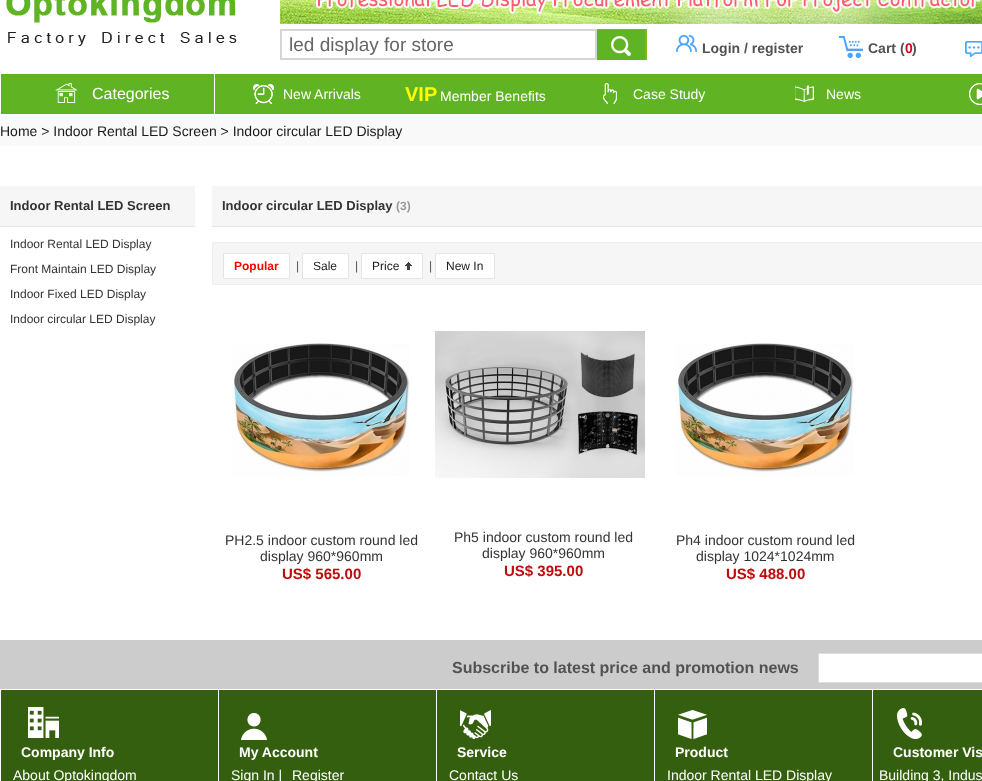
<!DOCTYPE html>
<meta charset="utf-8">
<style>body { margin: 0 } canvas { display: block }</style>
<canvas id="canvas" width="982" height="781"></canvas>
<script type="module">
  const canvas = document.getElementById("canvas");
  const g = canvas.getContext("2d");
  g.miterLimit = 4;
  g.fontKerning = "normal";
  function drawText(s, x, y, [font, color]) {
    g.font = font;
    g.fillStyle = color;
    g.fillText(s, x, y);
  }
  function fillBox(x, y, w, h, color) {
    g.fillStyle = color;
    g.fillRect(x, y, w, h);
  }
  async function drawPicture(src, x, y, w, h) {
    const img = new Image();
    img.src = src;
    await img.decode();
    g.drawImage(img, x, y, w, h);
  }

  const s1 = ["19px Liberation Sans", "#666666"];
  const s2 = ["bold 14px Liberation Sans", "#525252"];
  const s3 = ["bold 14px Liberation Sans", "#DA001E"];
  const s4 = ["16px Liberation Sans", "#FFFFFF"];
  const s5 = ["14px Liberation Sans", "#FFFFFF"];
  const s6 = ["bold 20px Liberation Sans", "#FFFF00"];
  const s7 = ["14px Liberation Sans", "#1A1A1A"];
  const s8 = ["bold 13px Liberation Sans", "#333333"];
  const s9 = ["12px Liberation Sans", "#333333"];
  const s10 = ["bold 12px Liberation Sans", "#999999"];
  const s11 = ["bold 12px Liberation Sans", "#FF0000"];
  const s12 = ["12px Liberation Sans", "#525252"];
  const s13 = ["12px Liberation Sans", "#1A1A1A"];
  const s14 = ["14px Liberation Sans", "#333333"];
  const s15 = ["bold 15px Liberation Sans", "#BF0B0B"];
  const s16 = ["bold 16px Liberation Sans", "#525252"];
  const s17 = ["bold 14px Liberation Sans", "#FFFFFF"];

  fillBox(0, 0, 982, 781, "#FFFFFF");
  await drawPicture("pic1.png", 6, 0, 231, 46);
  await drawPicture("pic2.png", 280, 0, 702, 24);
  g.strokeStyle = "#D5D5D5";
  g.lineWidth = 2;
  g.strokeRect(281, 30, 315, 29);
  drawText("led display for store", 289, 51, s1);
  fillBox(597, 29, 50, 31, "#7CBA10");
  await drawPicture("pic3.png", 597, 30, 48, 30);
  await drawPicture("pic4.png", 676, 35, 21, 17);
  drawText("Login", 702, 53, s2);
  drawText("/ register", 744, 53, s2);
  await drawPicture("pic5.png", 839, 36, 24, 22);
  drawText("Cart (", 868, 53, s2);
  drawText("0", 905, 53, s3);
  drawText(")", 912, 53, s2);
  await drawPicture("pic6.png", 965, 41, 17, 16);
  fillBox(1, 74, 981, 40, "#60B323");
  fillBox(214, 74, 1, 40, "#FFFFFF");
  await drawPicture("pic7.png", 55, 83, 22, 20);
  drawText("Categories", 92, 99, s4);
  await drawPicture("pic8.png", 253, 84, 21, 20);
  drawText("New Arrivals", 283, 99, s5);
  drawText("VIP", 405, 101, s6);
  drawText("Member Benefits", 440, 101, s5);
  await drawPicture("pic9.png", 603, 83, 14, 21);
  drawText("Case Study", 633, 99, s5);
  await drawPicture("pic10.png", 795, 85, 19, 17);
  drawText("News", 826, 99, s5);
  await drawPicture("pic11.png", 969, 83, 13, 22);
  fillBox(0, 116, 982, 30, "#F9F9F9");
  drawText("Home > Indoor Rental LED Screen > Indoor circular LED Display", 0, 136, s7);
  fillBox(0, 186, 195, 40, "#F6F6F6");
  fillBox(0, 226, 195, 1, "#E5E5E5");
  drawText("Indoor Rental LED Screen", 10, 210, s8);
  drawText("Indoor Rental LED Display", 10, 248, s9);
  drawText("Front Maintain LED Display", 10, 273, s9);
  drawText("Indoor Fixed LED Display", 10, 298, s9);
  drawText("Indoor circular LED Display", 10, 323, s9);
  fillBox(212, 186, 770, 40, "#F6F6F6");
  fillBox(212, 226, 770, 1, "#E5E5E5");
  drawText("Indoor circular LED Display", 222, 210, s8);
  drawText("(3)", 396, 210, s10);
  g.fillStyle = "#F6F6F6";
  g.beginPath();
  g.rect(212.5, 242.5, 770, 42);
  g.fill();
  g.strokeStyle = "#EEEEEE";
  g.lineWidth = 1;
  g.stroke();
  g.fillStyle = "#FFFFFF";
  g.beginPath();
  g.rect(223.5, 253.5, 66, 25);
  g.fill();
  g.strokeStyle = "#E5E5E5";
  g.stroke();
  drawText("Popular", 234, 270, s11);
  drawText("|", 296, 270, s12);
  g.fillStyle = "#FFFFFF";
  g.beginPath();
  g.rect(302.5, 253.5, 46, 25);
  g.fill();
  g.stroke();
  drawText("Sale", 313, 270, s13);
  drawText("|", 355, 270, s12);
  g.fillStyle = "#FFFFFF";
  g.beginPath();
  g.rect(361.5, 253.5, 61, 25);
  g.fill();
  g.stroke();
  drawText("Price", 372, 270, s13);
  await drawPicture("pic12.png", 405, 262, 7, 8);
  drawText("|", 429, 270, s12);
  g.fillStyle = "#FFFFFF";
  g.beginPath();
  g.rect(435.5, 253.5, 59, 25);
  g.fill();
  g.stroke();
  drawText("New In", 446, 270, s13);
  await drawPicture("pic13.png", 232, 343, 178, 133);
  drawText("PH2.5 indoor custom round led", 225, 545, s14);
  drawText("display 960*960mm", 260, 561, s14);
  drawText("US$ 565.00", 282, 579, s15);
  await drawPicture("pic14.png", 435, 331, 210, 147);
  drawText("Ph5 indoor custom round led", 454, 542, s14);
  drawText("display 960*960mm", 482, 558, s14);
  drawText("US$ 395.00", 504, 576, s15);
  await drawPicture("pic13.png", 676, 343, 178, 133);
  drawText("Ph4 indoor custom round led", 676, 545, s14);
  drawText("display 1024*1024mm", 696, 561, s14);
  drawText("US$ 488.00", 726, 579, s15);
  fillBox(0, 640, 982, 49, "#CCCCCC");
  drawText("Subscribe to latest price and promotion news", 452, 673, s16);
  g.fillStyle = "#FFFFFF";
  g.beginPath();
  g.rect(818.5, 653.5, 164, 29);
  g.fill();
  g.strokeStyle = "#DDDDDD";
  g.stroke();
  fillBox(1, 690, 981, 91, "#345F0E");
  await drawPicture("pic15.png", 28, 707, 31, 31);
  drawText("Company Info", 21, 757, s17);
  drawText("About Optokingdom", 13, 780, s5);
  fillBox(218, 690, 1, 91, "#FFFFFF");
  await drawPicture("pic16.png", 241, 713, 26, 27);
  drawText("My Account", 239, 757, s17);
  drawText("Sign In |", 231, 780, s5);
  drawText("Register", 292, 780, s5);
  fillBox(436, 690, 1, 91, "#FFFFFF");
  await drawPicture("pic17.png", 460, 710, 31, 29);
  drawText("Service", 457, 757, s17);
  drawText("Contact Us", 449, 780, s5);
  fillBox(654, 690, 1, 91, "#FFFFFF");
  await drawPicture("pic18.png", 678, 710, 29, 29);
  drawText("Product", 675, 757, s17);
  drawText("Indoor Rental LED Display", 667, 780, s5);
  fillBox(872, 690, 1, 91, "#FFFFFF");
  await drawPicture("pic19.png", 897, 708, 25, 31);
  drawText("Customer Vis", 893, 757, s17);
  drawText("Building 3, Indus", 879, 780, s5);
</script>
